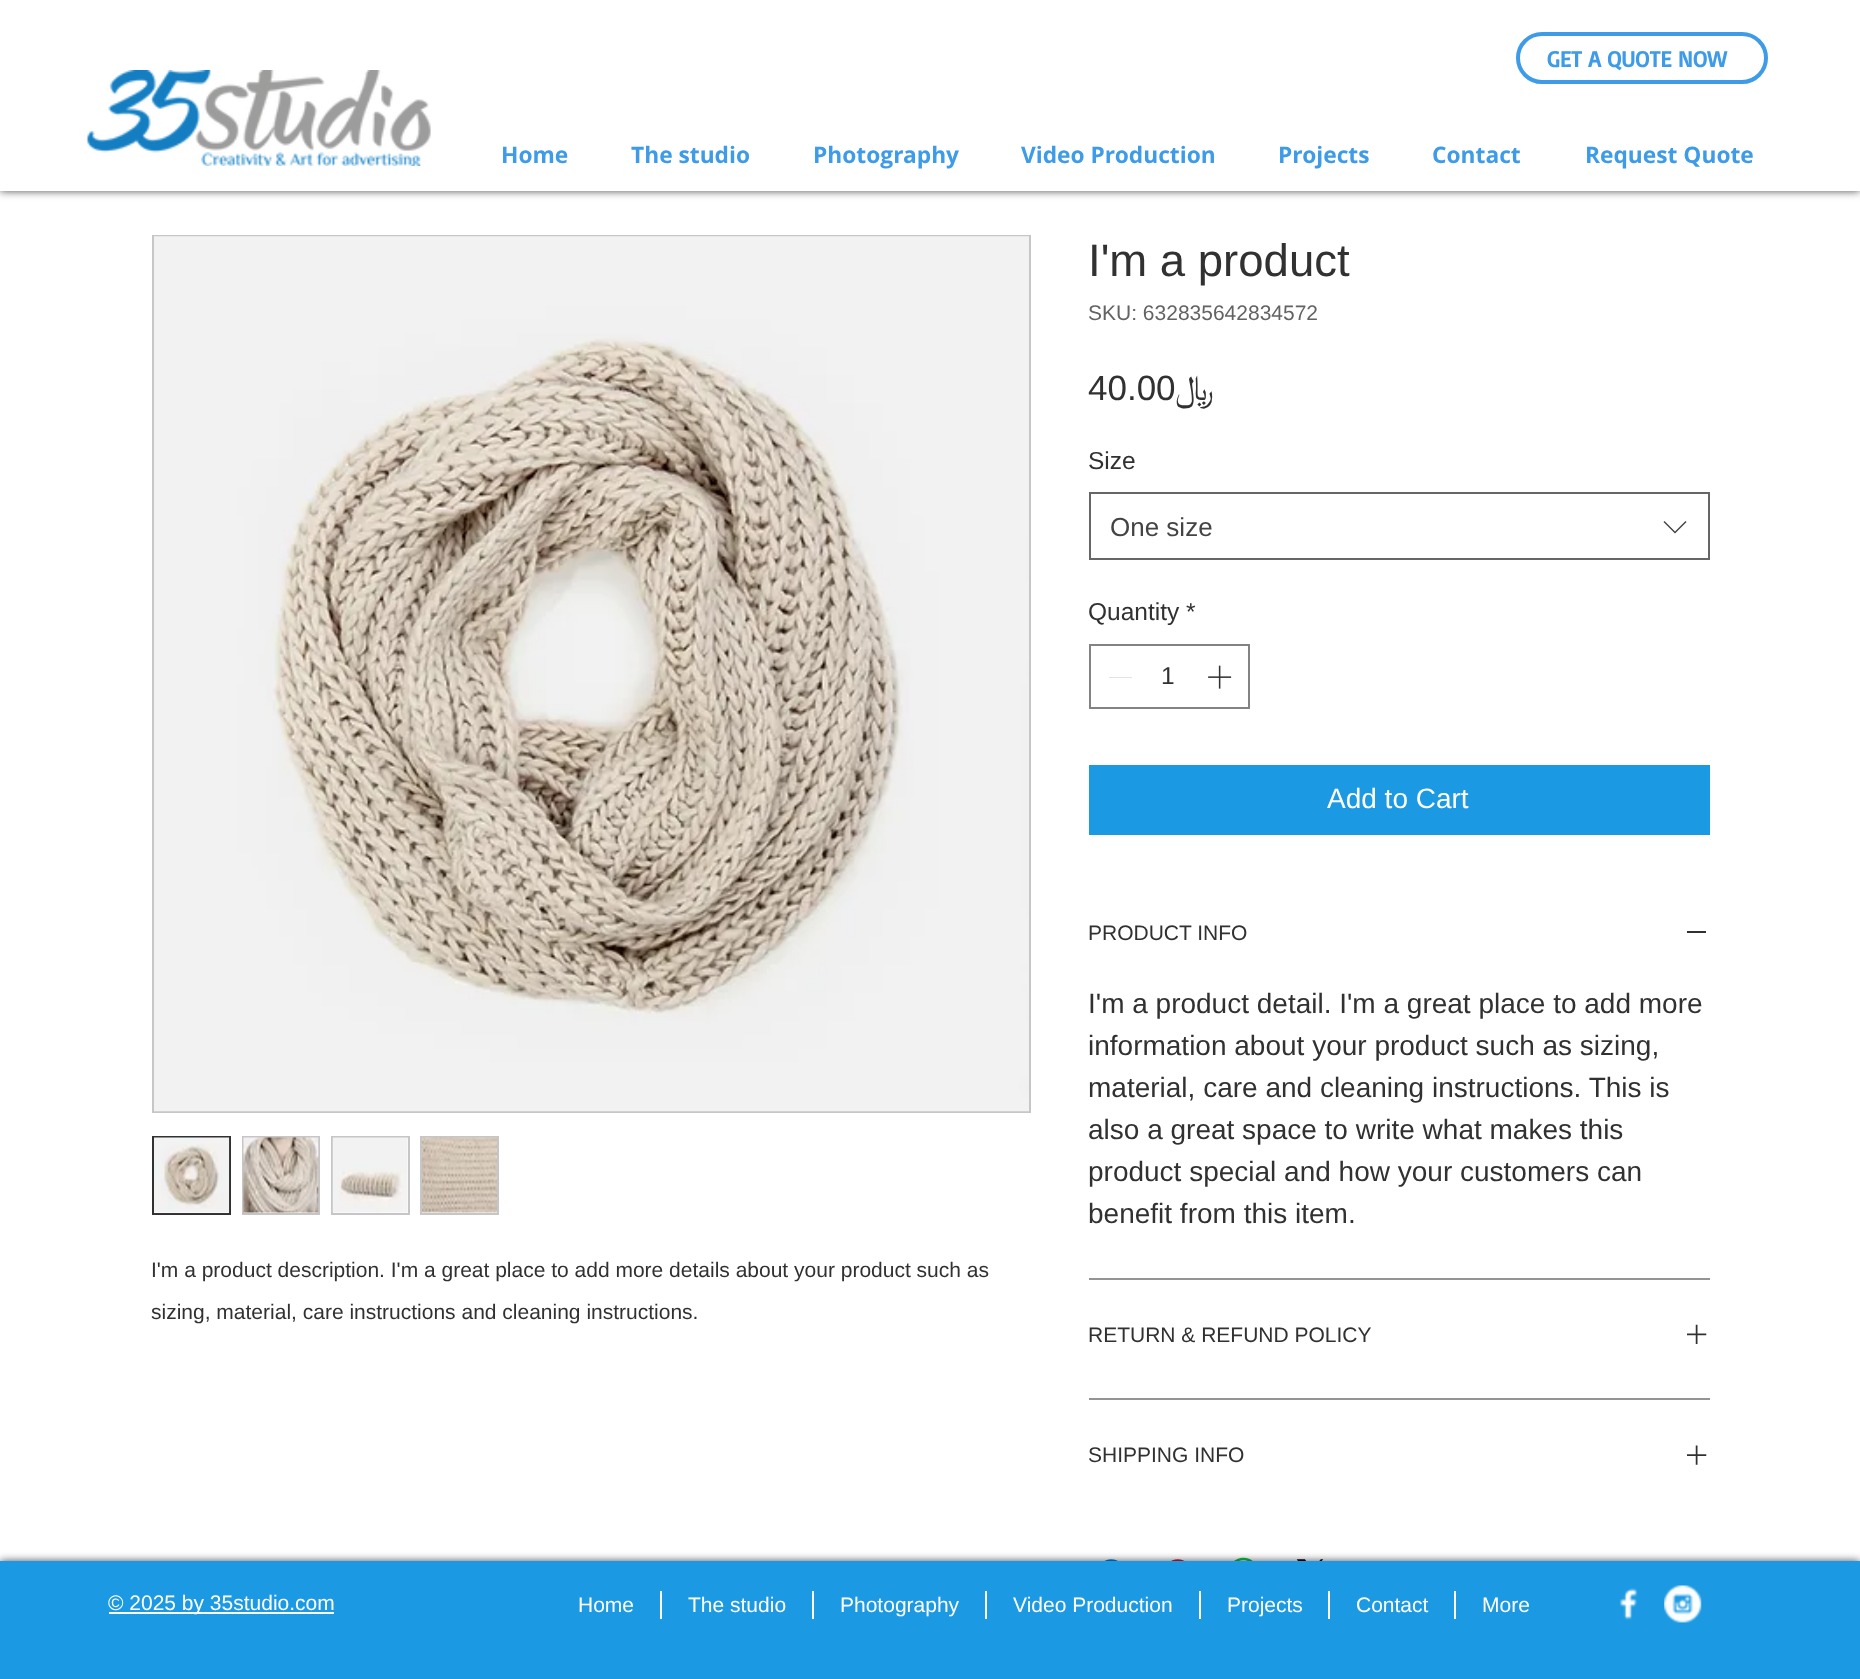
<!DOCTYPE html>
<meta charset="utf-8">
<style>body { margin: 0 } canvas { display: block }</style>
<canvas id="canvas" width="1860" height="1679"></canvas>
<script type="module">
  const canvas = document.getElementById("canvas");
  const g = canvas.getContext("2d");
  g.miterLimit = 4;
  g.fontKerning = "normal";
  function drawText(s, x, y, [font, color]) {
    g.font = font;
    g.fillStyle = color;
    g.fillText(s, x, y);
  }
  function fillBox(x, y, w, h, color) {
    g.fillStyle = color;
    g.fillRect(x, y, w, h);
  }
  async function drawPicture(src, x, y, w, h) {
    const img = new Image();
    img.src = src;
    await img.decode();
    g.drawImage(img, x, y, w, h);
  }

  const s1 = ["bold 22.75px Basic", "#3D9BE8"];
  const s2 = ["bold 22.75px Open Sans", "#3D9BE8"];
  const s3 = ["21px Liberation Sans", "#313131"];
  const s4 = ["45.5px Liberation Sans", "#313131"];
  const s5 = ["21px Liberation Sans", "#636363"];
  const s6 = ["35px Liberation Sans", "#313131"];
  const s7 = ["35px FreeSerif", "#313131"];
  const s8 = ["24.5px Liberation Sans", "#313131"];
  const s9 = ["26px Liberation Sans", "#444444"];
  const s10 = ["28px Liberation Sans", "#FFFFFF"];
  const s11 = ["28px Liberation Sans", "#313131"];
  const s12 = ["21px Liberation Sans", "#FFFFFF"];

  fillBox(0, 0, 1860, 1679, "#FFFFFF");
  g.fillStyle = "rgba(0, 0, 0, 0.7)";
  g.filter = "blur(4.5px)";
  g.beginPath();
  g.rect(0, 0, 1860, 191);
  g.fill();
  g.filter = "none";
  fillBox(0, 0, 1860, 191, "#FFFFFF");
  g.beginPath();
  g.roundRect(1518, 34, 248, 48, 24);
  g.strokeStyle = "#3D9BE8";
  g.lineWidth = 4;
  g.stroke();
  drawText("GET A QUOTE NOW", 1547, 67, s1);
  await drawPicture("pic1.png", 86, 70, 345, 96);
  drawText("Home", 501, 163, s2);
  drawText("The studio", 631, 163, s2);
  drawText("Photography", 813, 163, s2);
  drawText("Video Production", 1021, 163, s2);
  drawText("Projects", 1278, 163, s2);
  drawText("Contact", 1432, 163, s2);
  drawText("Request Quote", 1585, 163, s2);
  g.strokeStyle = "#C6C6C6";
  g.lineWidth = 2;
  g.strokeRect(153, 236, 877, 876);
  await drawPicture("pic2.png", 154, 236, 875, 876);
  g.strokeStyle = "#313131";
  g.strokeRect(153, 1137, 77, 77);
  await drawPicture("pic3.png", 154, 1137, 76, 77);
  g.strokeStyle = "#C6C6C6";
  g.strokeRect(243, 1137, 76, 77);
  await drawPicture("pic4.png", 243, 1137, 76, 77);
  g.strokeRect(332, 1137, 77, 77);
  await drawPicture("pic5.png", 332, 1137, 76, 76);
  g.strokeRect(421, 1137, 77, 77);
  await drawPicture("pic6.png", 422, 1137, 75, 76);
  drawText("I'm a product description. I'm a great place to add more details about your product such as", 151, 1277, s3);
  drawText("sizing, material, care instructions and cleaning instructions.", 151, 1319, s3);
  drawText("I'm a product", 1088, 276, s4);
  drawText("SKU: 632835642834572", 1088, 320, s5);
  drawText("40.00", 1088, 400, s6);
  g.direction = "rtl";
  drawText("﷼", 1214, 400, s7);
  g.direction = "ltr";
  drawText("Size", 1088, 469, s8);
  g.strokeStyle = "#666666";
  g.strokeRect(1090, 493, 619, 66);
  drawText("One size", 1110, 536, s9);
  g.beginPath();
  g.moveTo(1685.5, 521);
  g.lineTo(1686.5, 522);
  g.lineTo(1675, 533.5);
  g.lineTo(1663.5, 522);
  g.lineTo(1664.5, 521);
  g.lineTo(1675, 531.5);
  g.closePath();
  g.fill("evenodd");
  drawText("Quantity *", 1088, 620, s8);
  g.strokeStyle = "#838383";
  g.strokeRect(1090, 645, 159, 63);
  fillBox(1109, 677, 23, 1, "#E3E3E3");
  drawText("1", 1161, 684, s8);
  await drawPicture("pic7.png", 1208, 665, 24, 24);
  fillBox(1089, 765, 621, 70, "#1B99E2");
  drawText("Add to Cart", 1327, 808, s10);
  fillBox(1089, 1278, 621, 2, "#949494");
  drawText("PRODUCT INFO", 1088, 940, s3);
  fillBox(1687, 931, 19, 2, "#313131");
  drawText("I'm a product detail. I'm a great place to add more", 1088, 1013, s11);
  drawText("information about your product such as sizing,", 1088, 1055, s11);
  drawText("material, care and cleaning instructions. This is", 1088, 1097, s11);
  drawText("also a great space to write what makes this", 1088, 1139, s11);
  drawText("product special and how your customers can", 1088, 1181, s11);
  drawText("benefit from this item.", 1088, 1223, s11);
  fillBox(1089, 1398, 621, 2, "#949494");
  drawText("RETURN & REFUND POLICY", 1088, 1342, s3);
  await drawPicture("pic8.png", 1687, 1324, 20, 20);
  drawText("SHIPPING INFO", 1088, 1462, s3);
  await drawPicture("pic9.png", 1687, 1445, 20, 20);
  await drawPicture("pic10.png", 1104, 1559, 14, 2);
  await drawPicture("pic11.png", 1171, 1559, 14, 2);
  await drawPicture("pic12.png", 1234, 1557, 19, 4);
  await drawPicture("pic13.png", 1296, 1559, 28, 2);
  g.fillStyle = "rgba(0, 0, 0, 0.7)";
  g.filter = "blur(4.5px)";
  g.beginPath();
  g.rect(0, 1561, 1860, 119);
  g.fill();
  g.filter = "none";
  fillBox(0, 1561, 1860, 118, "#1B99E2");
  fillBox(109, 1612, 225, 2, "#FFFFFF");
  drawText("© 2025 by 35studio.com", 108, 1610, s12);
  drawText("Home", 578, 1612, s12);
  fillBox(660, 1591, 2, 28, "#FFFFFF");
  drawText("The studio", 688, 1612, s12);
  fillBox(812, 1591, 2, 28, "#FFFFFF");
  drawText("Photography", 840, 1612, s12);
  fillBox(985, 1591, 2, 28, "#FFFFFF");
  drawText("Video Production", 1013, 1612, s12);
  fillBox(1199, 1591, 2, 28, "#FFFFFF");
  drawText("Projects", 1227, 1612, s12);
  fillBox(1328, 1591, 2, 28, "#FFFFFF");
  drawText("Contact", 1356, 1612, s12);
  fillBox(1454, 1591, 2, 28, "#FFFFFF");
  drawText("More", 1482, 1612, s12);
  await drawPicture("pic14.png", 1619, 1588, 19, 32);
  await drawPicture("pic15.png", 1664, 1585, 38, 38);
</script>
